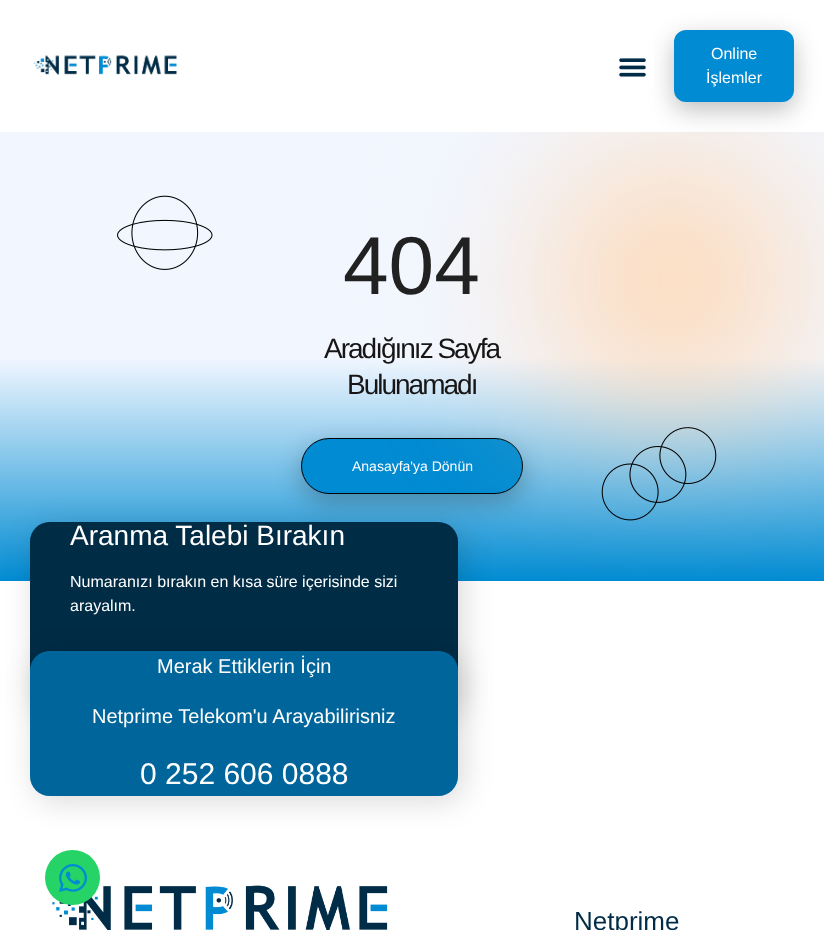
<!DOCTYPE html>
<meta charset="utf-8">
<style>body { margin: 0 } canvas { display: block }</style>
<canvas id="canvas" width="824" height="930"></canvas>
<script type="module">
  const canvas = document.getElementById("canvas");
  const g = canvas.getContext("2d");
  g.miterLimit = 4;
  g.fontKerning = "normal";
  function drawText(s, x, y, [font, color]) {
    g.font = font;
    g.fillStyle = color;
    g.fillText(s, x, y);
  }
  function fillBox(x, y, w, h, color) {
    g.fillStyle = color;
    g.fillRect(x, y, w, h);
  }
  function fillRounded(x, y, w, h, r, color) {
    g.fillStyle = color;
    g.beginPath();
    g.roundRect(x, y, w, h, r);
    g.fill();
  }
  async function drawPicture(src, x, y, w, h) {
    const img = new Image();
    img.src = src;
    await img.decode();
    g.drawImage(img, x, y, w, h);
  }
  let gradient;

  const s1 = ["16px Liberation Sans", "#FFFFFF"];
  const s2 = ["82px Liberation Sans", "#212121"];
  const s3 = ["28px Liberation Sans", "#171515"];
  const s4 = ["14px Liberation Sans", "#FFFFFF"];
  const s5 = ["28px Liberation Sans", "#FFFFFF"];
  const s6 = ["20px Liberation Sans", "#FFFFFF"];
  const s7 = ["30px Liberation Sans", "#FFFFFF"];
  const s8 = ["26px Liberation Sans", "#002C47"];

  fillBox(0, 0, 824, 930, "#FFFFFF");
  await drawPicture("pic1.png", 33, 55, 145, 20);
  gradient = g.createLinearGradient(412, 132, 412, 582);
  gradient.addColorStop(0.5, "#F2F7FF");
  gradient.addColorStop(1, "#008BD2");
  g.fillStyle = gradient;
  g.fillRect(0, 132, 824, 449);
  g.fillStyle = "rgba(0, 0, 0, 0.25)";
  g.filter = "blur(12px)";
  g.beginPath();
  g.roundRect(674, 38, 120, 72, 12);
  g.fill();
  g.filter = "none";
  g.filter = "blur(12px)";
  g.beginPath();
  g.roundRect(301, 446, 222, 56, 28);
  g.fill();
  g.filter = "none";
  g.fillStyle = "#008BD2";
  g.beginPath();
  g.roundRect(301.5, 438.5, 221, 55, 27.5);
  g.fill();
  g.strokeStyle = "#000000";
  g.stroke();
  g.save();
  g.beginPath();
  g.rect(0, 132, 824, 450);
  g.clip();
  g.fillStyle = "#FFD6B0";
  g.filter = "blur(83px)";
  g.beginPath();
  g.roundRect(548, 155, 247, 250, 123.5);
  g.fill();
  g.filter = "none";
  g.restore();
  fillRounded(611, 44, 43, 44, 3, "#FFFFFF");
  await drawPicture("pic2.png", 619, 58, 27, 19);
  fillRounded(674, 30, 120, 72, 12, "#008BD2");
  drawText("Online", 711, 59, s1);
  drawText("İşlemler", 706, 83, s1);
  await drawPicture("pic3.png", 117, 195, 96, 75);
  await drawPicture("pic4.png", 601, 427, 116, 94);
  drawText("404", 343, 294, s2);
  g.letterSpacing = "-2px";
  drawText("Aradığınız Sayfa", 324, 358, s3);
  drawText("Bulunamadı", 347, 394, s3);
  g.letterSpacing = "0px";
  drawText("Anasayfa'ya Dönün", 352, 471, s4);
  g.fillStyle = "rgba(0, 0, 0, 0.15)";
  g.filter = "blur(15px)";
  g.beginPath();
  g.roundRect(35, 527, 428, 189, 20);
  g.fill();
  g.filter = "none";
  fillRounded(30, 522, 428, 189, 20, "#002C47");
  fillRounded(30, 522, 428, 189, 20, "rgba(0, 44, 71, 0.4)");
  drawText("Aranma Talebi Bırakın", 70, 545, s5);
  drawText("Numaranızı bırakın en kısa süre içerisinde sizi", 70, 587, s1);
  drawText("arayalım.", 70, 611, s1);
  g.fillStyle = "rgba(0, 0, 0, 0.15)";
  g.filter = "blur(15px)";
  g.beginPath();
  g.roundRect(35, 656, 428, 145, 20);
  g.fill();
  g.filter = "none";
  fillRounded(30, 651, 428, 145, 20, "#008BD2");
  fillRounded(30, 651, 428, 145, 20, "rgba(0, 44, 71, 0.4)");
  drawText("Merak Ettiklerin İçin", 157, 673, s6);
  drawText("Netprime Telekom'u Arayabilirisniz", 92, 723, s6);
  drawText("0 252 606 0888", 140, 784, s7);
  await drawPicture("pic5.png", 52, 885, 336, 45);
  drawText("Netprime", 574, 930, s8);
  g.fillStyle = "#25D366";
  g.beginPath();
  g.arc(72.5, 877.5, 27.5, 0, Math.PI * 2);
  g.fill();
  await drawPicture("pic6.png", 59, 864, 28, 28);
</script>
